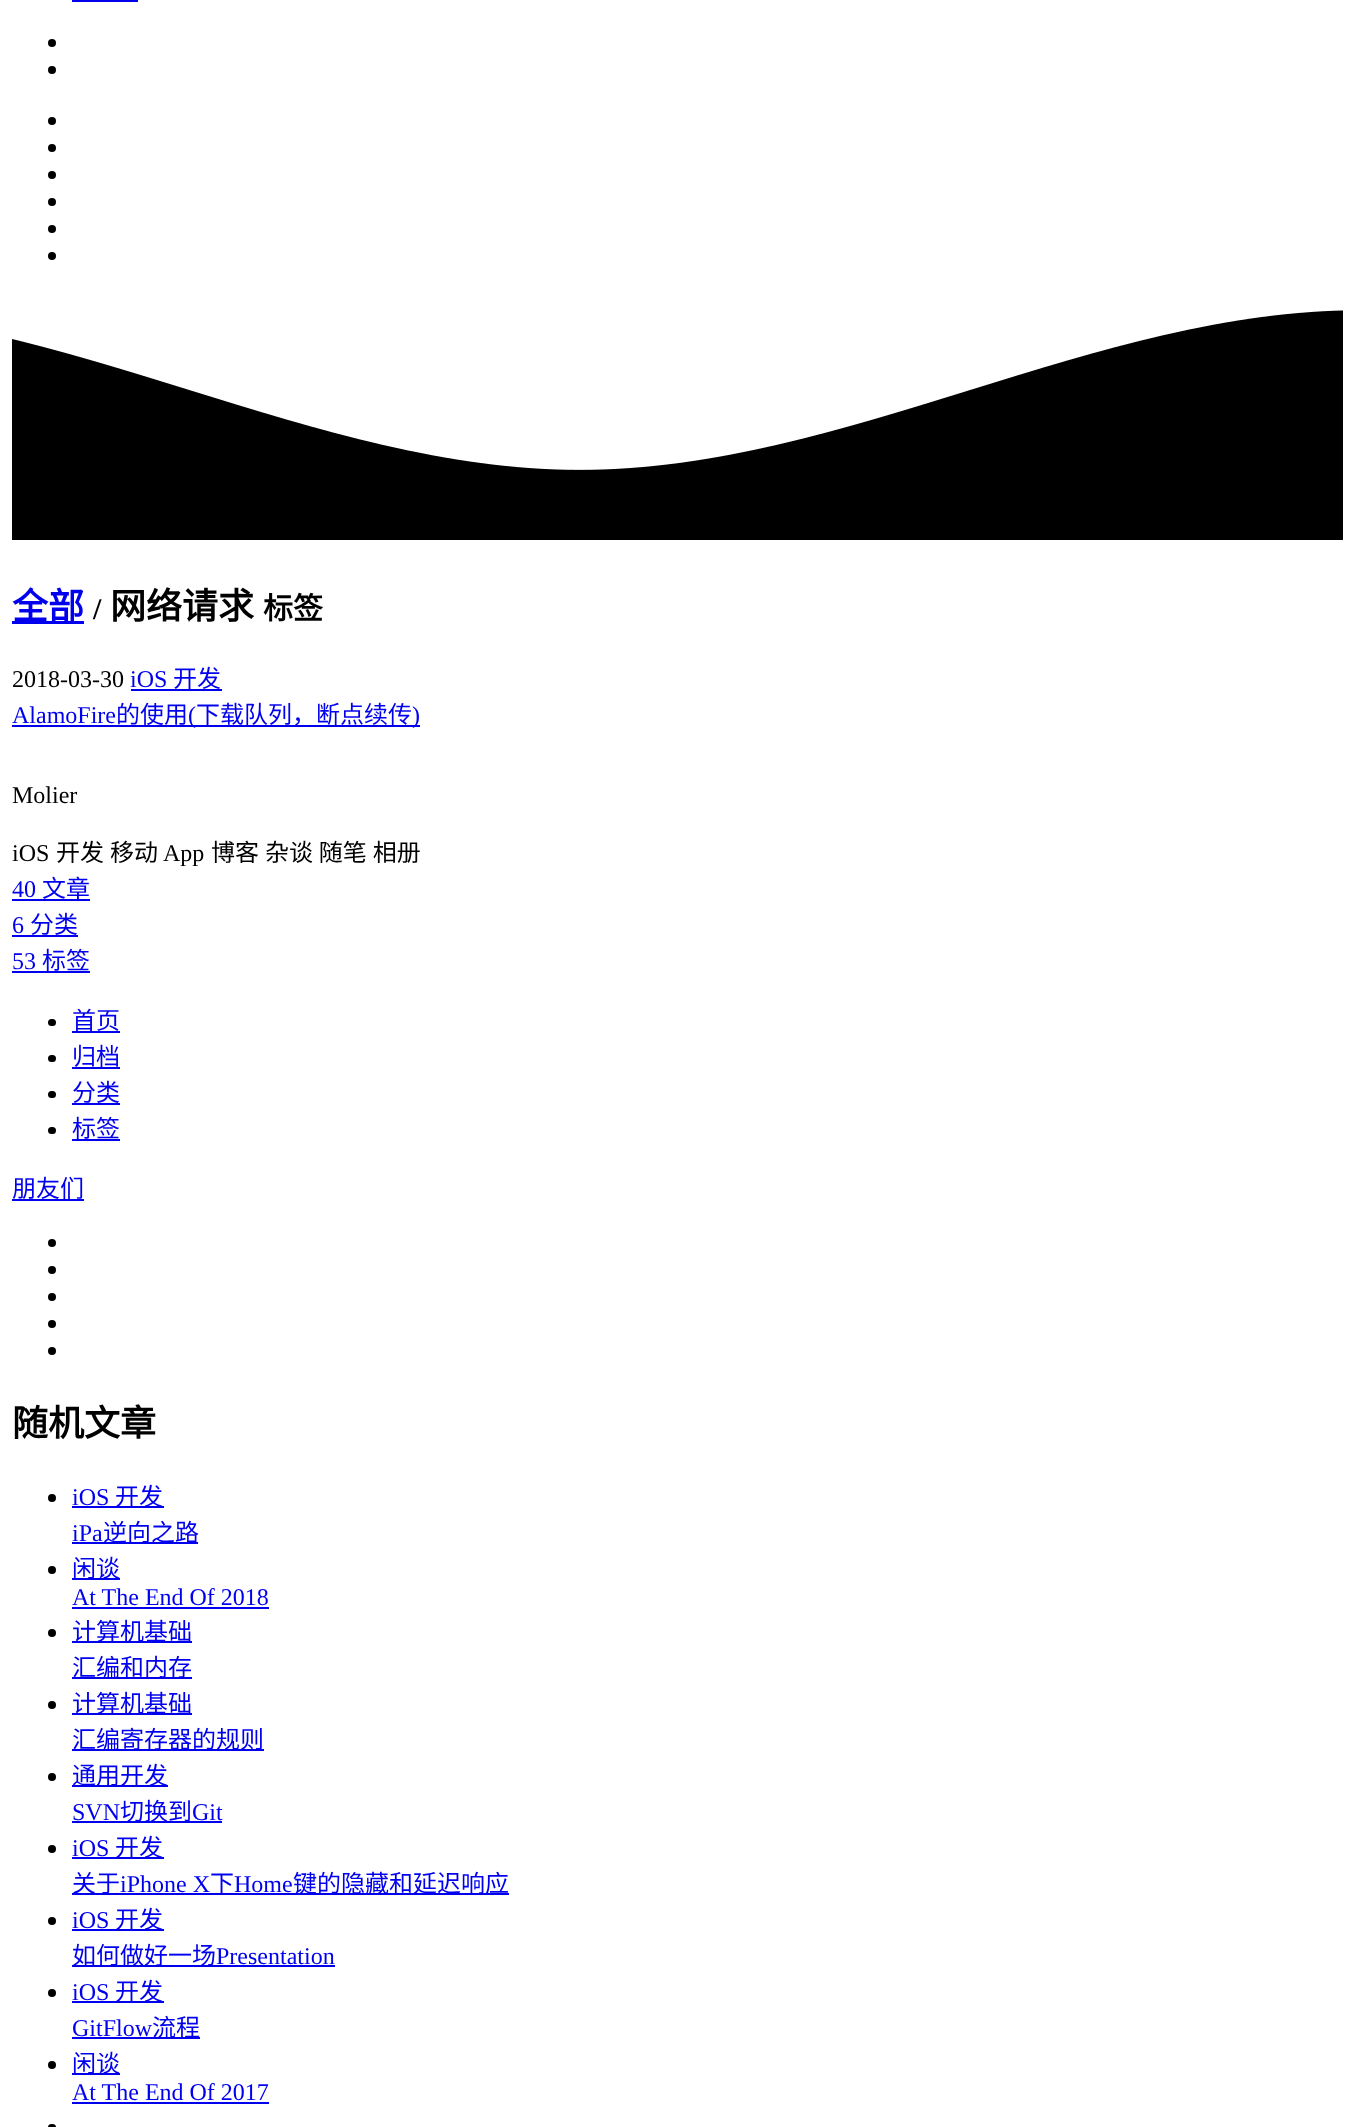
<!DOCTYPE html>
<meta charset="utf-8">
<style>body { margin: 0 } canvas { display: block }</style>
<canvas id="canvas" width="1354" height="2127"></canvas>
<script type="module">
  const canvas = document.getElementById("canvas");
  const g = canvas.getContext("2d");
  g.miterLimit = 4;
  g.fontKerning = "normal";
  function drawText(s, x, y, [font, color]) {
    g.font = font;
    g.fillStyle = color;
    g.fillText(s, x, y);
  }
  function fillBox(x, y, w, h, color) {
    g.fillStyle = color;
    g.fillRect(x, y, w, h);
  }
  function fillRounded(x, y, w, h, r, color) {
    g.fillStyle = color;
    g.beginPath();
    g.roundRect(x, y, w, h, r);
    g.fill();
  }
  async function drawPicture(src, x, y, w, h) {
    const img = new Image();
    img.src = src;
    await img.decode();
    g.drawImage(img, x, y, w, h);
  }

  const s1 = ["bold 36px Noto Sans CJK SC", "#0000EE"];
  const s2 = ["bold 30px Liberation Serif", "#000000"];
  const s3 = ["bold 36px Noto Sans CJK SC", "#000000"];
  const s4 = ["bold 30px Noto Sans CJK SC", "#000000"];
  const s5 = ["24px Liberation Serif", "#000000"];
  const s6 = ["24px Liberation Serif", "#0000EE"];
  const s7 = ["24px Noto Sans CJK SC", "#0000EE"];
  const s8 = ["24px Noto Sans CJK SC", "#000000"];

  fillBox(0, 0, 1354, 2127, "#FFFFFF");
  fillBox(72, 0, 66, 2, "#0000EE");
  g.fillStyle = "#000000";
  g.beginPath();
  g.arc(52, 43, 4, 0, Math.PI * 2);
  g.fill();
  g.beginPath();
  g.arc(52, 70, 4, 0, Math.PI * 2);
  g.fill();
  g.beginPath();
  g.arc(52, 121, 4, 0, Math.PI * 2);
  g.fill();
  g.beginPath();
  g.arc(52, 148, 4, 0, Math.PI * 2);
  g.fill();
  g.beginPath();
  g.arc(52, 175, 4, 0, Math.PI * 2);
  g.fill();
  g.beginPath();
  g.arc(52, 202, 4, 0, Math.PI * 2);
  g.fill();
  g.beginPath();
  g.arc(52, 229, 4, 0, Math.PI * 2);
  g.fill();
  g.beginPath();
  g.arc(52, 256, 4, 0, Math.PI * 2);
  g.fill();
  await drawPicture("pic1.png", 12, 310, 1331, 230);
  fillBox(12, 621, 72, 3, "#0000EE");
  drawText("全部", 12, 619, s1);
  drawText("/", 93, 619, s2);
  drawText("网络请求", 110, 619, s3);
  drawText("标签", 263, 619, s4);
  drawText("2018-03-30", 12, 687, s5);
  drawText("iOS", 130, 687, s6);
  fillBox(131, 689, 91, 2, "#0000EE");
  drawText("开发", 173, 687, s7);
  drawText("AlamoFire", 12, 723, s6);
  drawText("的使用", 116, 723, s7);
  fillBox(12, 725, 408, 2, "#0000EE");
  drawText("(", 188, 723, s6);
  drawText("下载队列，断点续传", 196, 723, s7);
  drawText(")", 412, 723, s6);
  drawText("Molier", 12, 803, s5);
  drawText("iOS", 12, 861, s5);
  g.wordSpacing = "0.5px";
  drawText("开发 移动", 56, 861, s8);
  g.wordSpacing = "0px";
  drawText("App", 163, 861, s5);
  g.wordSpacing = "0.5px";
  drawText("博客 杂谈 随笔 相册", 211, 861, s8);
  g.wordSpacing = "0px";
  drawText("40", 12, 897, s6);
  fillBox(12, 899, 78, 2, "#0000EE");
  drawText("文章", 42, 897, s7);
  drawText("6", 12, 933, s6);
  fillBox(12, 935, 66, 2, "#0000EE");
  drawText("分类", 30, 933, s7);
  drawText("53", 12, 969, s6);
  fillBox(12, 971, 78, 2, "#0000EE");
  drawText("标签", 42, 969, s7);
  fillRounded(48, 1019, 8, 7, 3.5, "#000000");
  drawText("首页", 72, 1029, s7);
  fillBox(72, 1031, 48, 2, "#0000EE");
  fillRounded(48, 1055, 8, 7, 3.5, "#000000");
  drawText("归档", 72, 1065, s7);
  fillBox(72, 1067, 48, 2, "#0000EE");
  fillRounded(48, 1091, 8, 7, 3.5, "#000000");
  drawText("分类", 72, 1101, s7);
  fillBox(72, 1103, 48, 2, "#0000EE");
  fillRounded(48, 1127, 8, 7, 3.5, "#000000");
  drawText("标签", 72, 1137, s7);
  fillBox(72, 1139, 48, 2, "#0000EE");
  drawText("朋友们", 12, 1197, s7);
  fillBox(12, 1199, 72, 2, "#0000EE");
  g.fillStyle = "#000000";
  g.beginPath();
  g.arc(52, 1243, 4, 0, Math.PI * 2);
  g.fill();
  g.beginPath();
  g.arc(52, 1270, 4, 0, Math.PI * 2);
  g.fill();
  g.beginPath();
  g.arc(52, 1297, 4, 0, Math.PI * 2);
  g.fill();
  g.beginPath();
  g.arc(52, 1324, 4, 0, Math.PI * 2);
  g.fill();
  g.beginPath();
  g.arc(52, 1351, 4, 0, Math.PI * 2);
  g.fill();
  drawText("随机文章", 12, 1436, s3);
  g.beginPath();
  g.arc(52, 1498, 4, 0, Math.PI * 2);
  g.fill();
  drawText("iOS", 72, 1505, s6);
  fillBox(72, 1506, 92, 2, "#0000EE");
  drawText("开发", 115, 1505, s7);
  drawText("iPa", 72, 1541, s6);
  fillBox(72, 1542, 126, 2, "#0000EE");
  drawText("逆向之路", 103, 1541, s7);
  g.fillStyle = "#000000";
  g.beginPath();
  g.arc(52, 1570, 4, 0, Math.PI * 2);
  g.fill();
  fillBox(72, 1578, 48, 2, "#0000EE");
  drawText("闲谈", 72, 1577, s7);
  drawText("At The End Of 2018", 72, 1605, s6);
  fillBox(72, 1607, 197, 2, "#0000EE");
  g.fillStyle = "#000000";
  g.beginPath();
  g.arc(52, 1633, 4, 0, Math.PI * 2);
  g.fill();
  fillBox(72, 1641, 120, 2, "#0000EE");
  drawText("计算机基础", 72, 1640, s7);
  fillBox(72, 1677, 120, 2, "#0000EE");
  drawText("汇编和内存", 72, 1676, s7);
  g.fillStyle = "#000000";
  g.beginPath();
  g.arc(52, 1705, 4, 0, Math.PI * 2);
  g.fill();
  fillBox(72, 1713, 120, 2, "#0000EE");
  drawText("计算机基础", 72, 1712, s7);
  fillBox(72, 1749, 192, 2, "#0000EE");
  drawText("汇编寄存器的规则", 72, 1748, s7);
  g.fillStyle = "#000000";
  g.beginPath();
  g.arc(52, 1777, 4, 0, Math.PI * 2);
  g.fill();
  fillBox(72, 1785, 96, 2, "#0000EE");
  drawText("通用开发", 72, 1784, s7);
  drawText("SVN", 72, 1820, s6);
  fillBox(72, 1821, 150, 2, "#0000EE");
  drawText("切换到", 120, 1820, s7);
  drawText("Git", 192, 1820, s6);
  g.fillStyle = "#000000";
  g.beginPath();
  g.arc(52, 1849, 4, 0, Math.PI * 2);
  g.fill();
  drawText("iOS", 72, 1856, s6);
  fillBox(72, 1857, 92, 2, "#0000EE");
  drawText("开发", 115, 1856, s7);
  fillBox(72, 1893, 437, 2, "#0000EE");
  drawText("关于", 72, 1892, s7);
  drawText("iPhone X", 120, 1892, s6);
  drawText("下", 210, 1892, s7);
  drawText("Home", 234, 1892, s6);
  drawText("键的隐藏和延迟响应", 293, 1892, s7);
  g.fillStyle = "#000000";
  g.beginPath();
  g.arc(52, 1921, 4, 0, Math.PI * 2);
  g.fill();
  drawText("iOS", 72, 1928, s6);
  fillBox(72, 1929, 92, 2, "#0000EE");
  drawText("开发", 115, 1928, s7);
  fillBox(72, 1965, 263, 2, "#0000EE");
  drawText("如何做好一场", 72, 1964, s7);
  drawText("Presentation", 216, 1964, s6);
  g.fillStyle = "#000000";
  g.beginPath();
  g.arc(52, 1993, 4, 0, Math.PI * 2);
  g.fill();
  drawText("iOS", 72, 2000, s6);
  fillBox(72, 2001, 92, 2, "#0000EE");
  drawText("开发", 115, 2000, s7);
  drawText("GitFlow", 72, 2036, s6);
  fillBox(72, 2037, 128, 2, "#0000EE");
  drawText("流程", 152, 2036, s7);
  g.fillStyle = "#000000";
  g.beginPath();
  g.arc(52, 2065, 4, 0, Math.PI * 2);
  g.fill();
  fillBox(72, 2073, 48, 2, "#0000EE");
  drawText("闲谈", 72, 2072, s7);
  drawText("At The End Of 2017", 72, 2100, s6);
  fillBox(72, 2102, 197, 2, "#0000EE");
  fillRounded(48, 2124, 8, 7, 4, "#000000");
</script>
